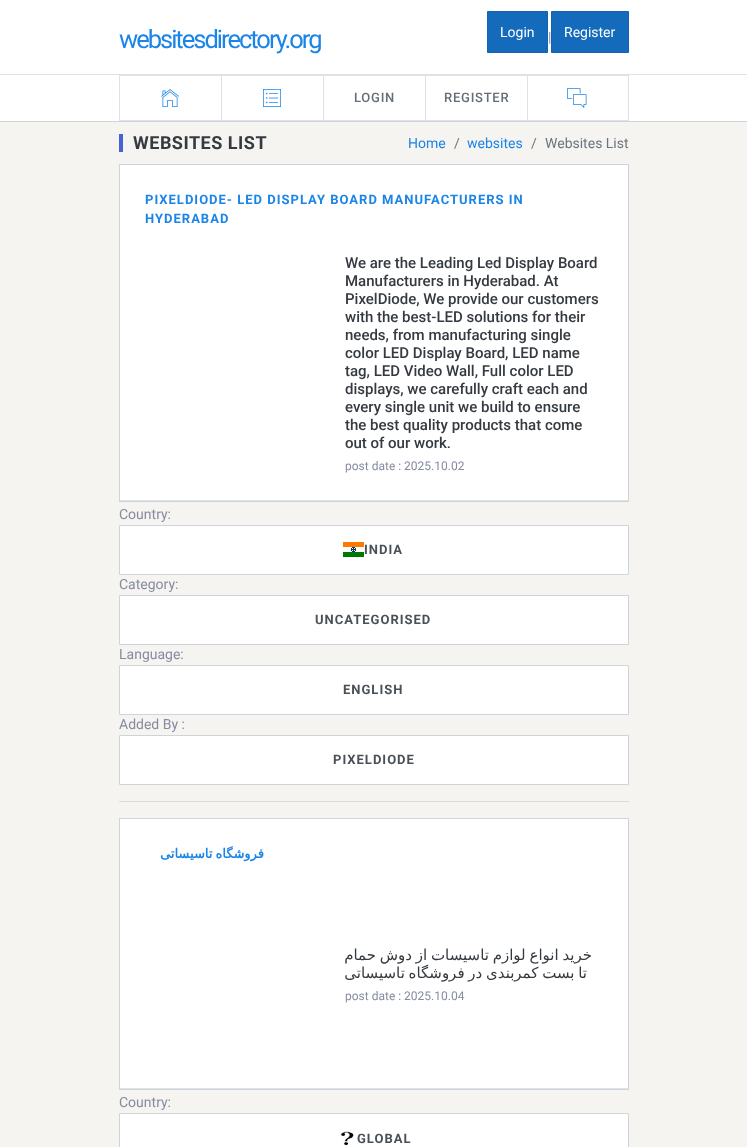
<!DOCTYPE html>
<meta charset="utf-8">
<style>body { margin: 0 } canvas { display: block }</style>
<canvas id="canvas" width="747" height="1147"></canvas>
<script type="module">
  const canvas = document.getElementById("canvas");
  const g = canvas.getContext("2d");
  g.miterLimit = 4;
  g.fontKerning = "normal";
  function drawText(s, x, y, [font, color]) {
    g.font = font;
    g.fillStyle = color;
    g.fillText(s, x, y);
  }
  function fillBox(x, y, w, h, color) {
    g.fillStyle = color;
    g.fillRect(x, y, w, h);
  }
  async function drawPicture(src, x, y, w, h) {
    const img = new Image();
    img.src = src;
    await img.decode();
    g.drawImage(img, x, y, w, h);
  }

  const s1 = ["25.5px Roboto", "#1B84E7"];
  const s2 = ["14px Roboto", "#FFFFFF"];
  const s3 = ["14px Roboto", "#868BA1"];
  const s4 = ["500 13px Roboto", "#656D75"];
  const s5 = ["bold 18px Roboto", "#343A40"];
  const s6 = ["14px Roboto", "#1B84E7"];
  const s7 = ["14px Roboto", "#6C757D"];
  const s8 = ["bold 13px Roboto", "#1B84E7"];
  const s9 = ["500 15px Roboto", "#343A40"];
  const s10 = ["12px Roboto", "#868BA1"];
  const s11 = ["bold 13px Roboto", "#495057"];
  const s12 = ["bold 13px DejaVu Sans", "#1B84E7"];
  const s13 = ["15px DejaVu Sans", "#343A40"];

  fillBox(0, 0, 747, 1147, "#F5F4F0");
  fillBox(0, 0, 747, 74, "#FFFFFF");
  fillBox(0, 74, 747, 1, "#DEE2E6");
  g.letterSpacing = "-2px";
  drawText("websitesdirectory.org", 119, 48, s1);
  g.fillStyle = "#146ABB";
  g.beginPath();
  g.rect(487.5, 11.5, 60, 41);
  g.fill();
  g.strokeStyle = "#1363B0";
  g.stroke();
  g.letterSpacing = "0px";
  drawText("Login", 500, 37, s2);
  drawText("|", 548, 42, s3);
  g.fillStyle = "#146ABB";
  g.beginPath();
  g.rect(551.5, 11.5, 77, 41);
  g.fill();
  g.stroke();
  drawText("Register", 564, 37, s2);
  fillBox(0, 75, 747, 46, "#FFFFFF");
  fillBox(0, 121, 747, 1, "#CED4DA");
  fillBox(119, 75, 408, 1, "#DEE2E6");
  fillBox(119, 120, 408, 1, "#DEE2E6");
  fillBox(119, 75, 1, 46, "#DEE2E6");
  await drawPicture("pic1.png", 161, 89, 18, 18);
  fillBox(221, 75, 1, 46, "#DEE2E6");
  await drawPicture("pic2.png", 263, 89, 18, 18);
  fillBox(323, 75, 1, 46, "#DEE2E6");
  g.letterSpacing = "0.75px";
  drawText("LOGIN", 354, 102, s4);
  fillBox(425, 75, 1, 46, "#DEE2E6");
  drawText("REGISTER", 444, 102, s4);
  g.strokeStyle = "#DEE2E6";
  g.strokeRect(527.5, 75.5, 101, 45);
  await drawPicture("pic3.png", 567, 88, 20, 20);
  fillBox(119, 134, 4, 18, "#4662D4");
  g.letterSpacing = "0.5px";
  drawText("WEBSITES LIST", 133, 149, s5);
  g.letterSpacing = "0px";
  drawText("Home", 408, 148, s6);
  drawText("/", 454, 148, s7);
  drawText("websites", 467, 148, s6);
  drawText("/", 531, 148, s7);
  drawText("Websites List", 545, 148, s7);
  fillBox(120, 165, 508, 335, "#FFFFFF");
  g.strokeStyle = "#CED4DA";
  g.strokeRect(119.5, 164.5, 509, 337);
  g.letterSpacing = "1px";
  drawText("PIXELDIODE- LED DISPLAY BOARD MANUFACTURERS IN", 145, 204, s8);
  drawText("HYDERABAD", 145, 223, s8);
  g.letterSpacing = "0px";
  drawText("We are the Leading Led Display Board", 345, 268, s9);
  drawText("Manufacturers in Hyderabad. At", 345, 286, s9);
  drawText("PixelDiode, We provide our customers", 345, 304, s9);
  drawText("with the best-LED solutions for their", 345, 322, s9);
  drawText("needs, from manufacturing single", 345, 340, s9);
  drawText("color LED Display Board, LED name", 345, 358, s9);
  drawText("tag, LED Video Wall, Full color LED", 345, 376, s9);
  drawText("displays, we carefully craft each and", 345, 394, s9);
  drawText("every single unit we build to ensure", 345, 412, s9);
  drawText("the best quality products that come", 345, 430, s9);
  drawText("out of our work.", 345, 448, s9);
  drawText("post date : 2025.10.02", 345, 470, s10);
  fillBox(120, 500, 508, 1, "#DEE2E6");
  drawText("Country:", 119, 519, s3);
  g.fillStyle = "#FFFFFF";
  g.beginPath();
  g.rect(119.5, 525.5, 509, 49);
  g.fill();
  g.stroke();
  await drawPicture("pic4.png", 343, 542, 21, 15);
  g.letterSpacing = "1px";
  drawText("INDIA", 364, 554, s11);
  g.letterSpacing = "0px";
  drawText("Category:", 119, 589, s3);
  g.fillStyle = "#FFFFFF";
  g.beginPath();
  g.rect(119.5, 595.5, 509, 49);
  g.fill();
  g.stroke();
  g.letterSpacing = "1px";
  drawText("UNCATEGORISED", 315, 624, s11);
  g.letterSpacing = "0px";
  drawText("Language:", 119, 659, s3);
  g.fillStyle = "#FFFFFF";
  g.beginPath();
  g.rect(119.5, 665.5, 509, 49);
  g.fill();
  g.stroke();
  g.letterSpacing = "1px";
  drawText("ENGLISH", 343, 694, s11);
  g.letterSpacing = "0px";
  drawText("Added By :", 119, 729, s3);
  g.fillStyle = "#FFFFFF";
  g.beginPath();
  g.rect(119.5, 735.5, 509, 49);
  g.fill();
  g.stroke();
  g.letterSpacing = "1px";
  drawText("PIXELDIODE", 333, 764, s11);
  fillBox(119, 801, 510, 1, "#DDDCD8");
  fillBox(120, 819, 508, 269, "#FFFFFF");
  g.strokeRect(119.5, 818.5, 509, 271);
  g.wordSpacing = "-2px";
  g.direction = "rtl";
  drawText("فروشگاه تاسیساتی", 264, 858, s12);
  g.letterSpacing = "0px";
  g.wordSpacing = "-1px";
  drawText("خرید انواع لوازم تاسیسات از دوش حمام", 592, 960, s13);
  drawText("تا بست کمربندی در فروشگاه تاسیساتی", 587, 978, s13);
  g.wordSpacing = "0px";
  g.direction = "ltr";
  drawText("post date : 2025.10.04", 345, 1000, s10);
  fillBox(120, 1088, 508, 1, "#DEE2E6");
  drawText("Country:", 119, 1107, s3);
  g.fillStyle = "#FFFFFF";
  g.beginPath();
  g.rect(119.5, 1113.5, 509, 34);
  g.fill();
  g.stroke();
  await drawPicture("pic5.png", 338, 1131, 16, 15);
  g.letterSpacing = "1px";
  drawText("GLOBAL", 357, 1143, s11);
</script>
